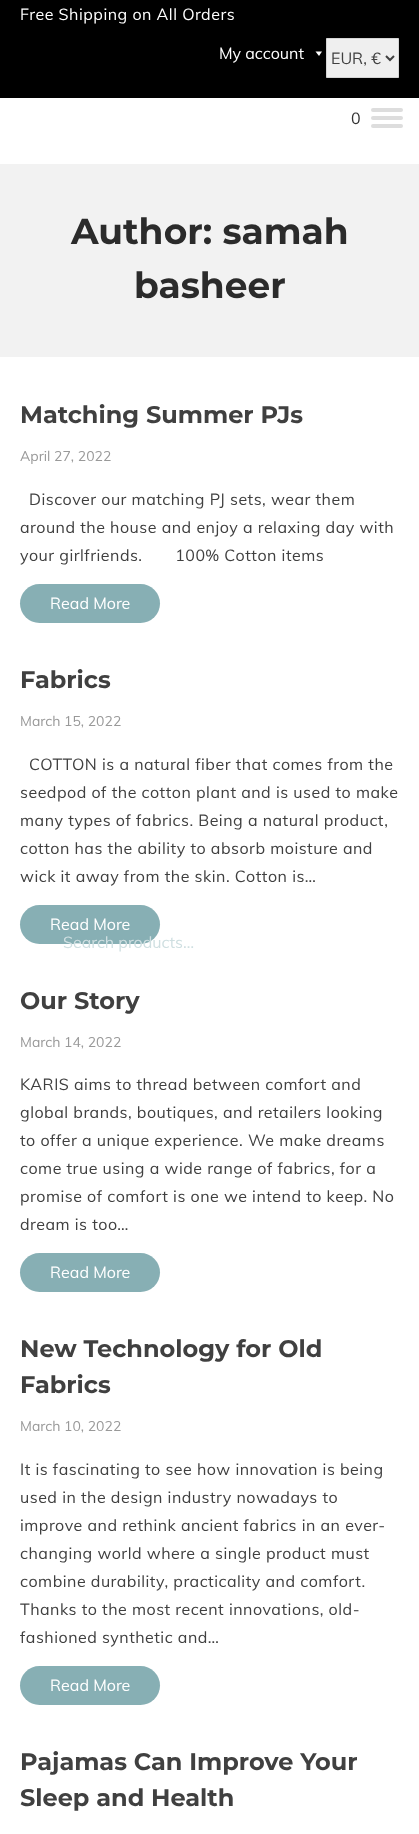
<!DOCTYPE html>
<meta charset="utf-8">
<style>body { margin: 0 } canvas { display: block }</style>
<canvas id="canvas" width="419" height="1834"></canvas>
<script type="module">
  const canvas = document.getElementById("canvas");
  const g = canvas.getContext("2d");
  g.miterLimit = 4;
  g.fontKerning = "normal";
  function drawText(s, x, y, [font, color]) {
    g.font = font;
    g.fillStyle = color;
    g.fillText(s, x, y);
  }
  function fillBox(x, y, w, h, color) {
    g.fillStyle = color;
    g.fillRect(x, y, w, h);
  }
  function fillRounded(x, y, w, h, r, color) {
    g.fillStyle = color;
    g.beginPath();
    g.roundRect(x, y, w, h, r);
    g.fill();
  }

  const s1 = ["16px Muli", "#FFFFFF"];
  const s2 = ["16px Muli", "#404040"];
  const s3 = ["16px Muli", "#333333"];
  const s4 = ["bold 36px Montserrat", "#2B2B2B"];
  const s5 = ["bold 24px Montserrat", "#404040"];
  const s6 = ["14px Muli", "#999999"];
  const s7 = ["16px Muli", "#CFDFE1"];

  fillBox(0, 0, 419, 1834, "#FFFFFF");
  fillBox(0, 0, 419, 98, "#000000");
  g.letterSpacing = "0.5px";
  drawText("Free Shipping on All Orders", 20, 20, s1);
  g.letterSpacing = "0px";
  drawText("My account", 219, 59, s1);
  g.beginPath();
  g.moveTo(322, 51.5);
  g.lineTo(319, 56);
  g.lineTo(315.5, 51.5);
  g.closePath();
  g.fill();
  g.fillStyle = "#EFEFEF";
  g.beginPath();
  g.rect(326.5, 38.5, 72, 39);
  g.fill();
  g.strokeStyle = "#D5D5D5";
  g.stroke();
  g.beginPath();
  g.moveTo(386, 56);
  g.lineTo(390, 60);
  g.lineTo(394, 56);
  g.strokeStyle = "#404040";
  g.lineWidth = 2;
  g.stroke();
  drawText("EUR, €", 331, 64, s2);
  drawText("0", 351, 124, s3);
  fillRounded(371, 108, 32, 4, 2, "#DDDDDD");
  fillRounded(371, 116, 32, 4, 2, "#DDDDDD");
  fillRounded(371, 124, 32, 4, 2, "#DDDDDD");
  fillBox(0, 164, 419, 193, "#F2F2F2");
  drawText("Author: samah", 71, 244, s4);
  drawText("basheer", 134, 298, s4);
  drawText("Matching Summer PJs", 20, 423, s5);
  drawText("April 27, 2022", 20, 461, s6);
  g.letterSpacing = "0.5px";
  drawText("Discover our matching PJ sets, wear them", 29, 505, s2);
  drawText("around the house and enjoy a relaxing day with", 20, 533, s2);
  drawText("your girlfriends.       100% Cotton items", 20, 561, s2);
  fillRounded(20, 584, 140, 39, 19.5, "#87AFB4");
  g.letterSpacing = "0px";
  drawText("Read More", 50, 609, s1);
  drawText("Fabrics", 20, 688, s5);
  drawText("March 15, 2022", 20, 726, s6);
  g.letterSpacing = "0.5px";
  drawText("COTTON is a natural fiber that comes from the", 29, 770, s2);
  drawText("seedpod of the cotton plant and is used to make", 20, 798, s2);
  drawText("many types of fabrics. Being a natural product,", 20, 826, s2);
  drawText("cotton has the ability to absorb moisture and", 20, 854, s2);
  drawText("wick it away from the skin. Cotton is…", 20, 882, s2);
  fillRounded(20, 905, 140, 39, 19.5, "#87AFB4");
  g.letterSpacing = "0px";
  drawText("Read More", 50, 930, s1);
  drawText("Our Story", 20, 1009, s5);
  drawText("March 14, 2022", 20, 1047, s6);
  g.letterSpacing = "0.5px";
  drawText("KARIS aims to thread between comfort and", 20, 1090, s2);
  drawText("global brands, boutiques, and retailers looking", 20, 1118, s2);
  drawText("to offer a unique experience. We make dreams", 20, 1146, s2);
  drawText("come true using a wide range of fabrics, for a", 20, 1174, s2);
  drawText("promise of comfort is one we intend to keep. No", 20, 1202, s2);
  drawText("dream is too…", 20, 1230, s2);
  fillRounded(20, 1253, 140, 39, 19.5, "#87AFB4");
  g.letterSpacing = "0px";
  drawText("Read More", 50, 1278, s1);
  drawText("New Technology for Old", 20, 1357, s5);
  drawText("Fabrics", 20, 1393, s5);
  drawText("March 10, 2022", 20, 1431, s6);
  g.letterSpacing = "0.5px";
  drawText("It is fascinating to see how innovation is being", 20, 1475, s2);
  drawText("used in the design industry nowadays to", 20, 1503, s2);
  drawText("improve and rethink ancient fabrics in an ever-", 20, 1531, s2);
  drawText("changing world where a single product must", 20, 1559, s2);
  drawText("combine durability, practicality and comfort.", 20, 1587, s2);
  drawText("Thanks to the most recent innovations, old-", 20, 1615, s2);
  drawText("fashioned synthetic and…", 20, 1643, s2);
  fillRounded(20, 1666, 140, 39, 19.5, "#87AFB4");
  g.letterSpacing = "0px";
  drawText("Read More", 50, 1691, s1);
  drawText("Pajamas Can Improve Your", 20, 1770, s5);
  drawText("Sleep and Health", 20, 1806, s5);
  drawText("Search products…", 63, 948, s7);
</script>
